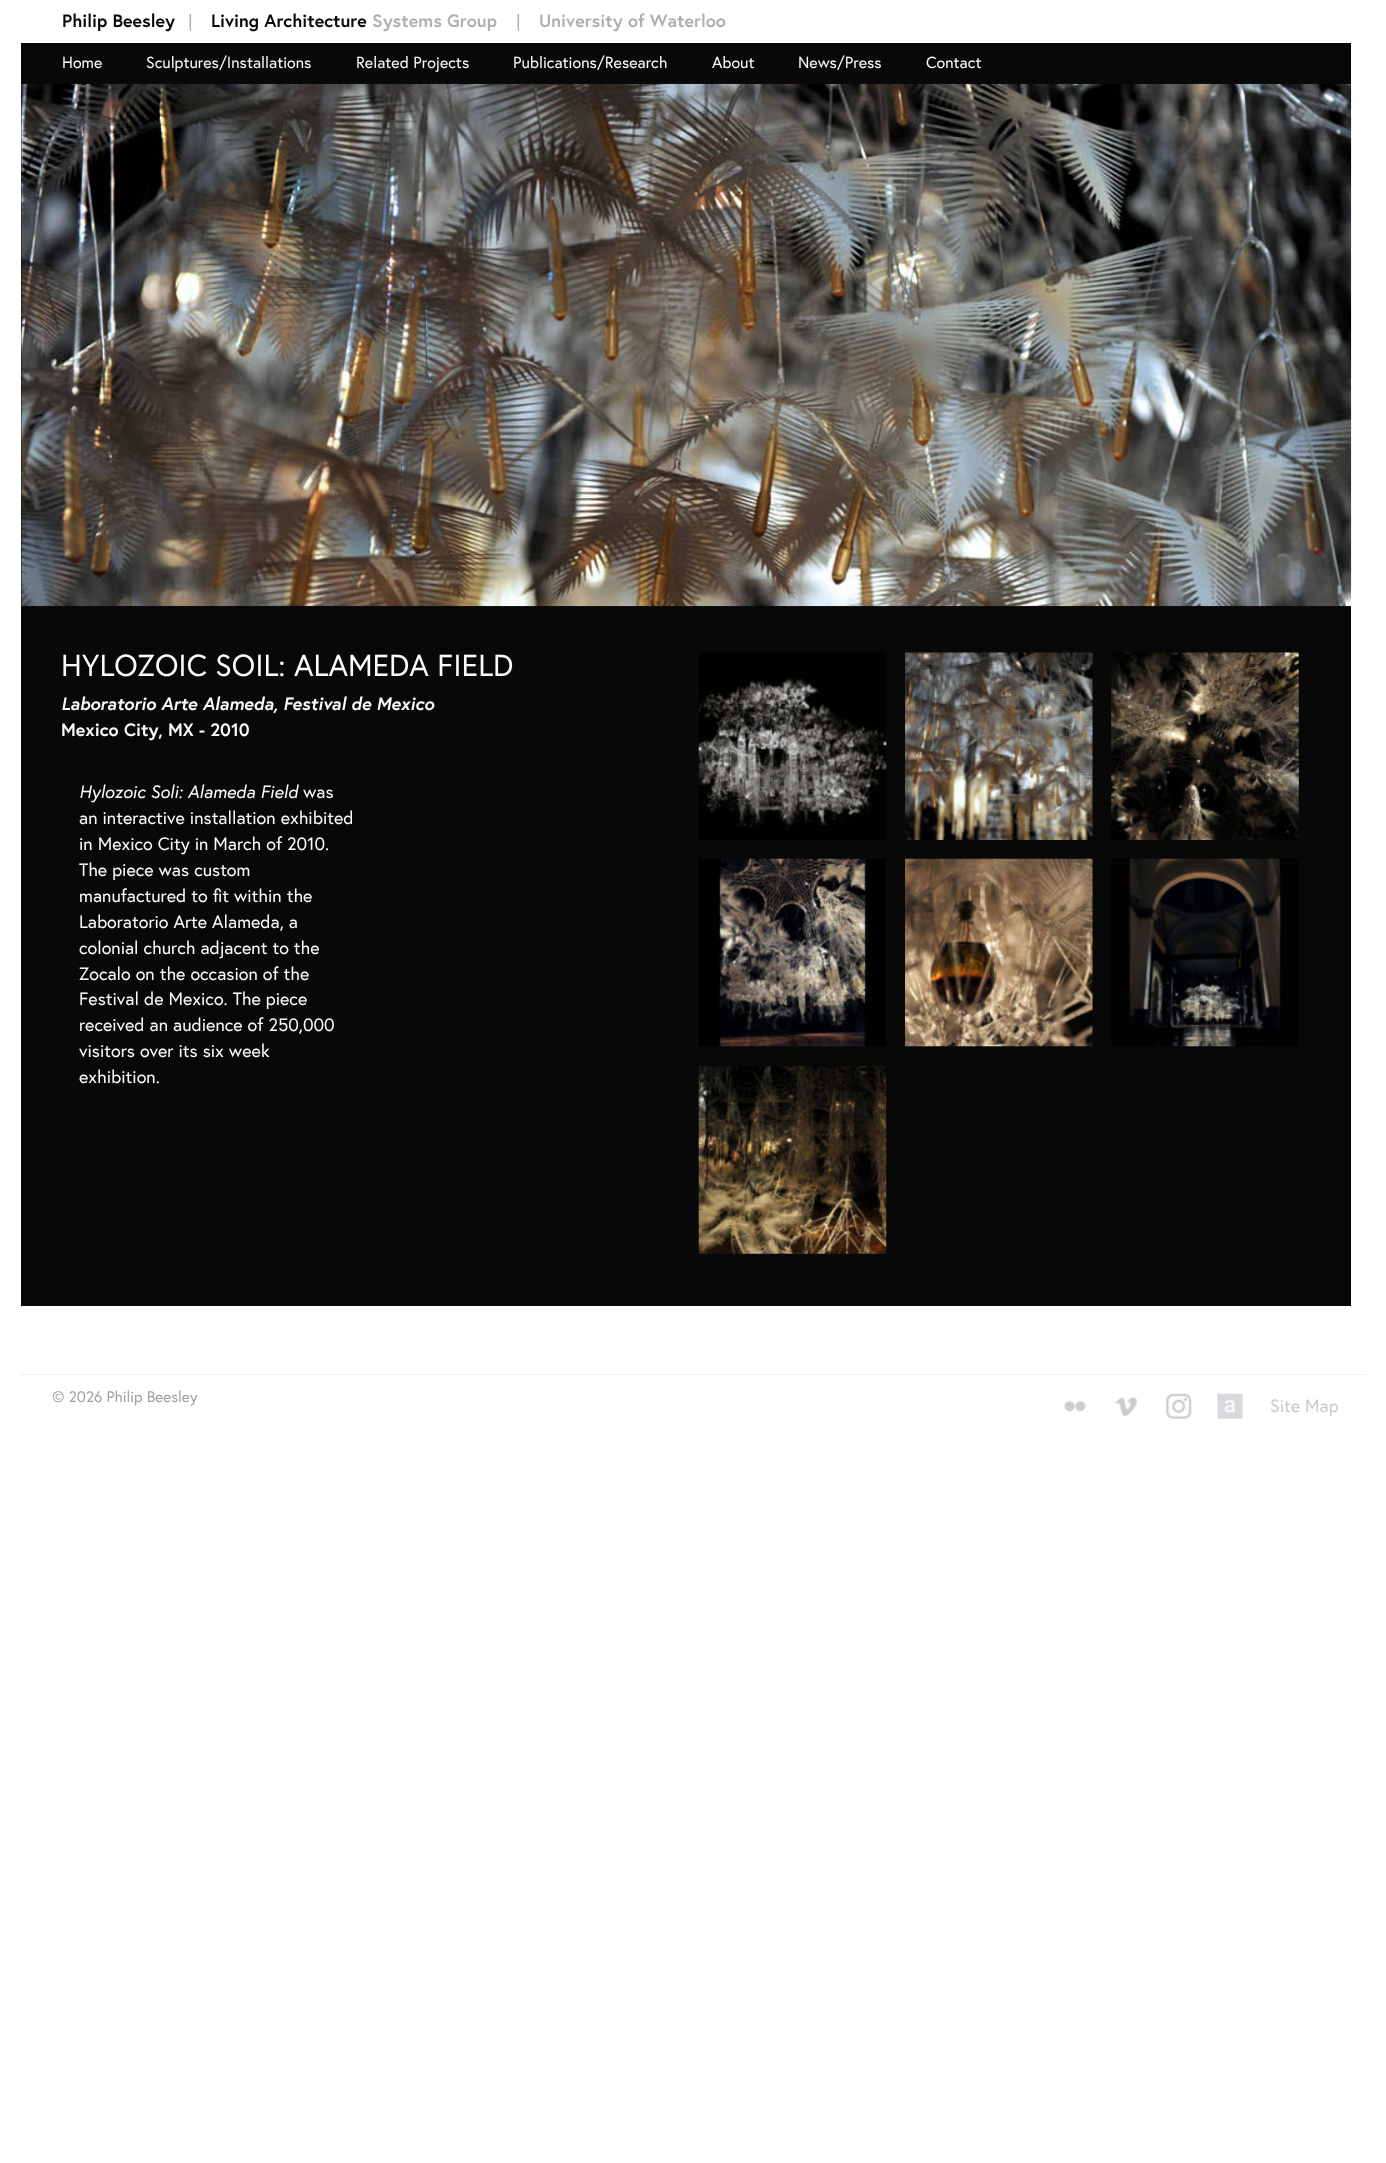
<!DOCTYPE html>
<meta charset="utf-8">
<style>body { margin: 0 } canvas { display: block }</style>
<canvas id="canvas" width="1386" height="2163"></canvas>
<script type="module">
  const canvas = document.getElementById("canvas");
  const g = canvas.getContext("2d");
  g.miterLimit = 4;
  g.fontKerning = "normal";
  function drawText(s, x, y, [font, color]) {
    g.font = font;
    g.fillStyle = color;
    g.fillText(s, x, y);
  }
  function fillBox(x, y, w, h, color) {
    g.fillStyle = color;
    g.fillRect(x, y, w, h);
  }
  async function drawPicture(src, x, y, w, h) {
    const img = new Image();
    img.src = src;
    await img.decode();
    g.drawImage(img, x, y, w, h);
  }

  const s1 = ["bold 17.9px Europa", "#080808"];
  const s2 = ["17.9px Liberation Sans", "#B0B0B0"];
  const s3 = ["bold 17.9px Europa", "#B0B0B0"];
  const s4 = ["16px Europa", "#FBFBFB"];
  const s5 = ["30.4px Europa", "#FBFBFB"];
  const s6 = ["italic bold 17.9px Europa", "#FBFBFB"];
  const s7 = ["bold 17.9px Europa", "#FBFBFB"];
  const s8 = ["italic 17.9px Europa", "#FBFBFB"];
  const s9 = ["17.9px Europa", "#FBFBFB"];
  const s10 = ["15.25px Europa", "#A0A0A0"];
  const s11 = ["17.9px Europa", "#CACACA"];

  fillBox(0, 0, 1386, 2163, "#FFFFFF");
  drawText("Philip Beesley", 62, 27, s1);
  drawText("|", 188, 27, s2);
  drawText("Living Architecture", 211, 27, s1);
  drawText("Systems Group", 372, 27, s3);
  drawText("|", 516, 27, s2);
  drawText("University of Waterloo", 539, 27, s3);
  fillBox(21, 43, 1330, 1263, "#080808");
  drawText("Home", 62, 68, s4);
  drawText("Sculptures/Installations", 146, 68, s4);
  drawText("Related Projects", 356, 68, s4);
  drawText("Publications/Research", 513, 68, s4);
  drawText("About", 712, 68, s4);
  drawText("News/Press", 798, 68, s4);
  drawText("Contact", 926, 68, s4);
  await drawPicture("pic1.png", 21, 83, 1331, 524);
  drawText("HYLOZOIC SOIL: ALAMEDA FIELD", 61, 676, s5);
  drawText("Laboratorio Arte Alameda, Festival de Mexico", 61, 710, s6);
  drawText("Mexico City, MX - 2010", 61, 736, s7);
  drawText("Hylozoic Soli: Alameda Field", 79, 798, s8);
  drawText("was", 303, 798, s9);
  drawText("an interactive installation exhibited", 79, 824, s9);
  drawText("in Mexico City in March of 2010.", 79, 850, s9);
  drawText("The piece was custom", 79, 876, s9);
  drawText("manufactured to fit within the", 79, 902, s9);
  drawText("Laboratorio Arte Alameda, a", 79, 928, s9);
  drawText("colonial church adjacent to the", 79, 954, s9);
  drawText("Zocalo on the occasion of the", 79, 980, s9);
  drawText("Festival de Mexico. The piece", 79, 1005, s9);
  drawText("received an audience of 250,000", 79, 1031, s9);
  drawText("visitors over its six week", 79, 1057, s9);
  drawText("exhibition.", 79, 1083, s9);
  await drawPicture("pic2.png", 698, 652, 189, 188);
  await drawPicture("pic3.png", 905, 652, 188, 188);
  await drawPicture("pic4.png", 1111, 652, 188, 188);
  await drawPicture("pic5.png", 699, 858, 187, 189);
  await drawPicture("pic6.png", 905, 858, 188, 189);
  await drawPicture("pic7.png", 1111, 858, 188, 189);
  await drawPicture("pic8.png", 698, 1066, 189, 188);
  g.beginPath();
  g.moveTo(21, 1374.5);
  g.lineTo(1365, 1374.5);
  g.strokeStyle = "#DEDEDE";
  g.lineWidth = 1.2;
  g.setLineDash([1.25, 1.25]);
  g.stroke();
  drawText("© 2026 Philip Beesley", 52, 1402, s10);
  await drawPicture("pic9.png", 1064, 1400, 22, 12);
  await drawPicture("pic10.png", 1115, 1397, 22, 20);
  await drawPicture("pic11.png", 1166, 1393, 26, 26);
  await drawPicture("pic12.png", 1217, 1393, 26, 26);
  drawText("Site Map", 1270, 1412, s11);
</script>
